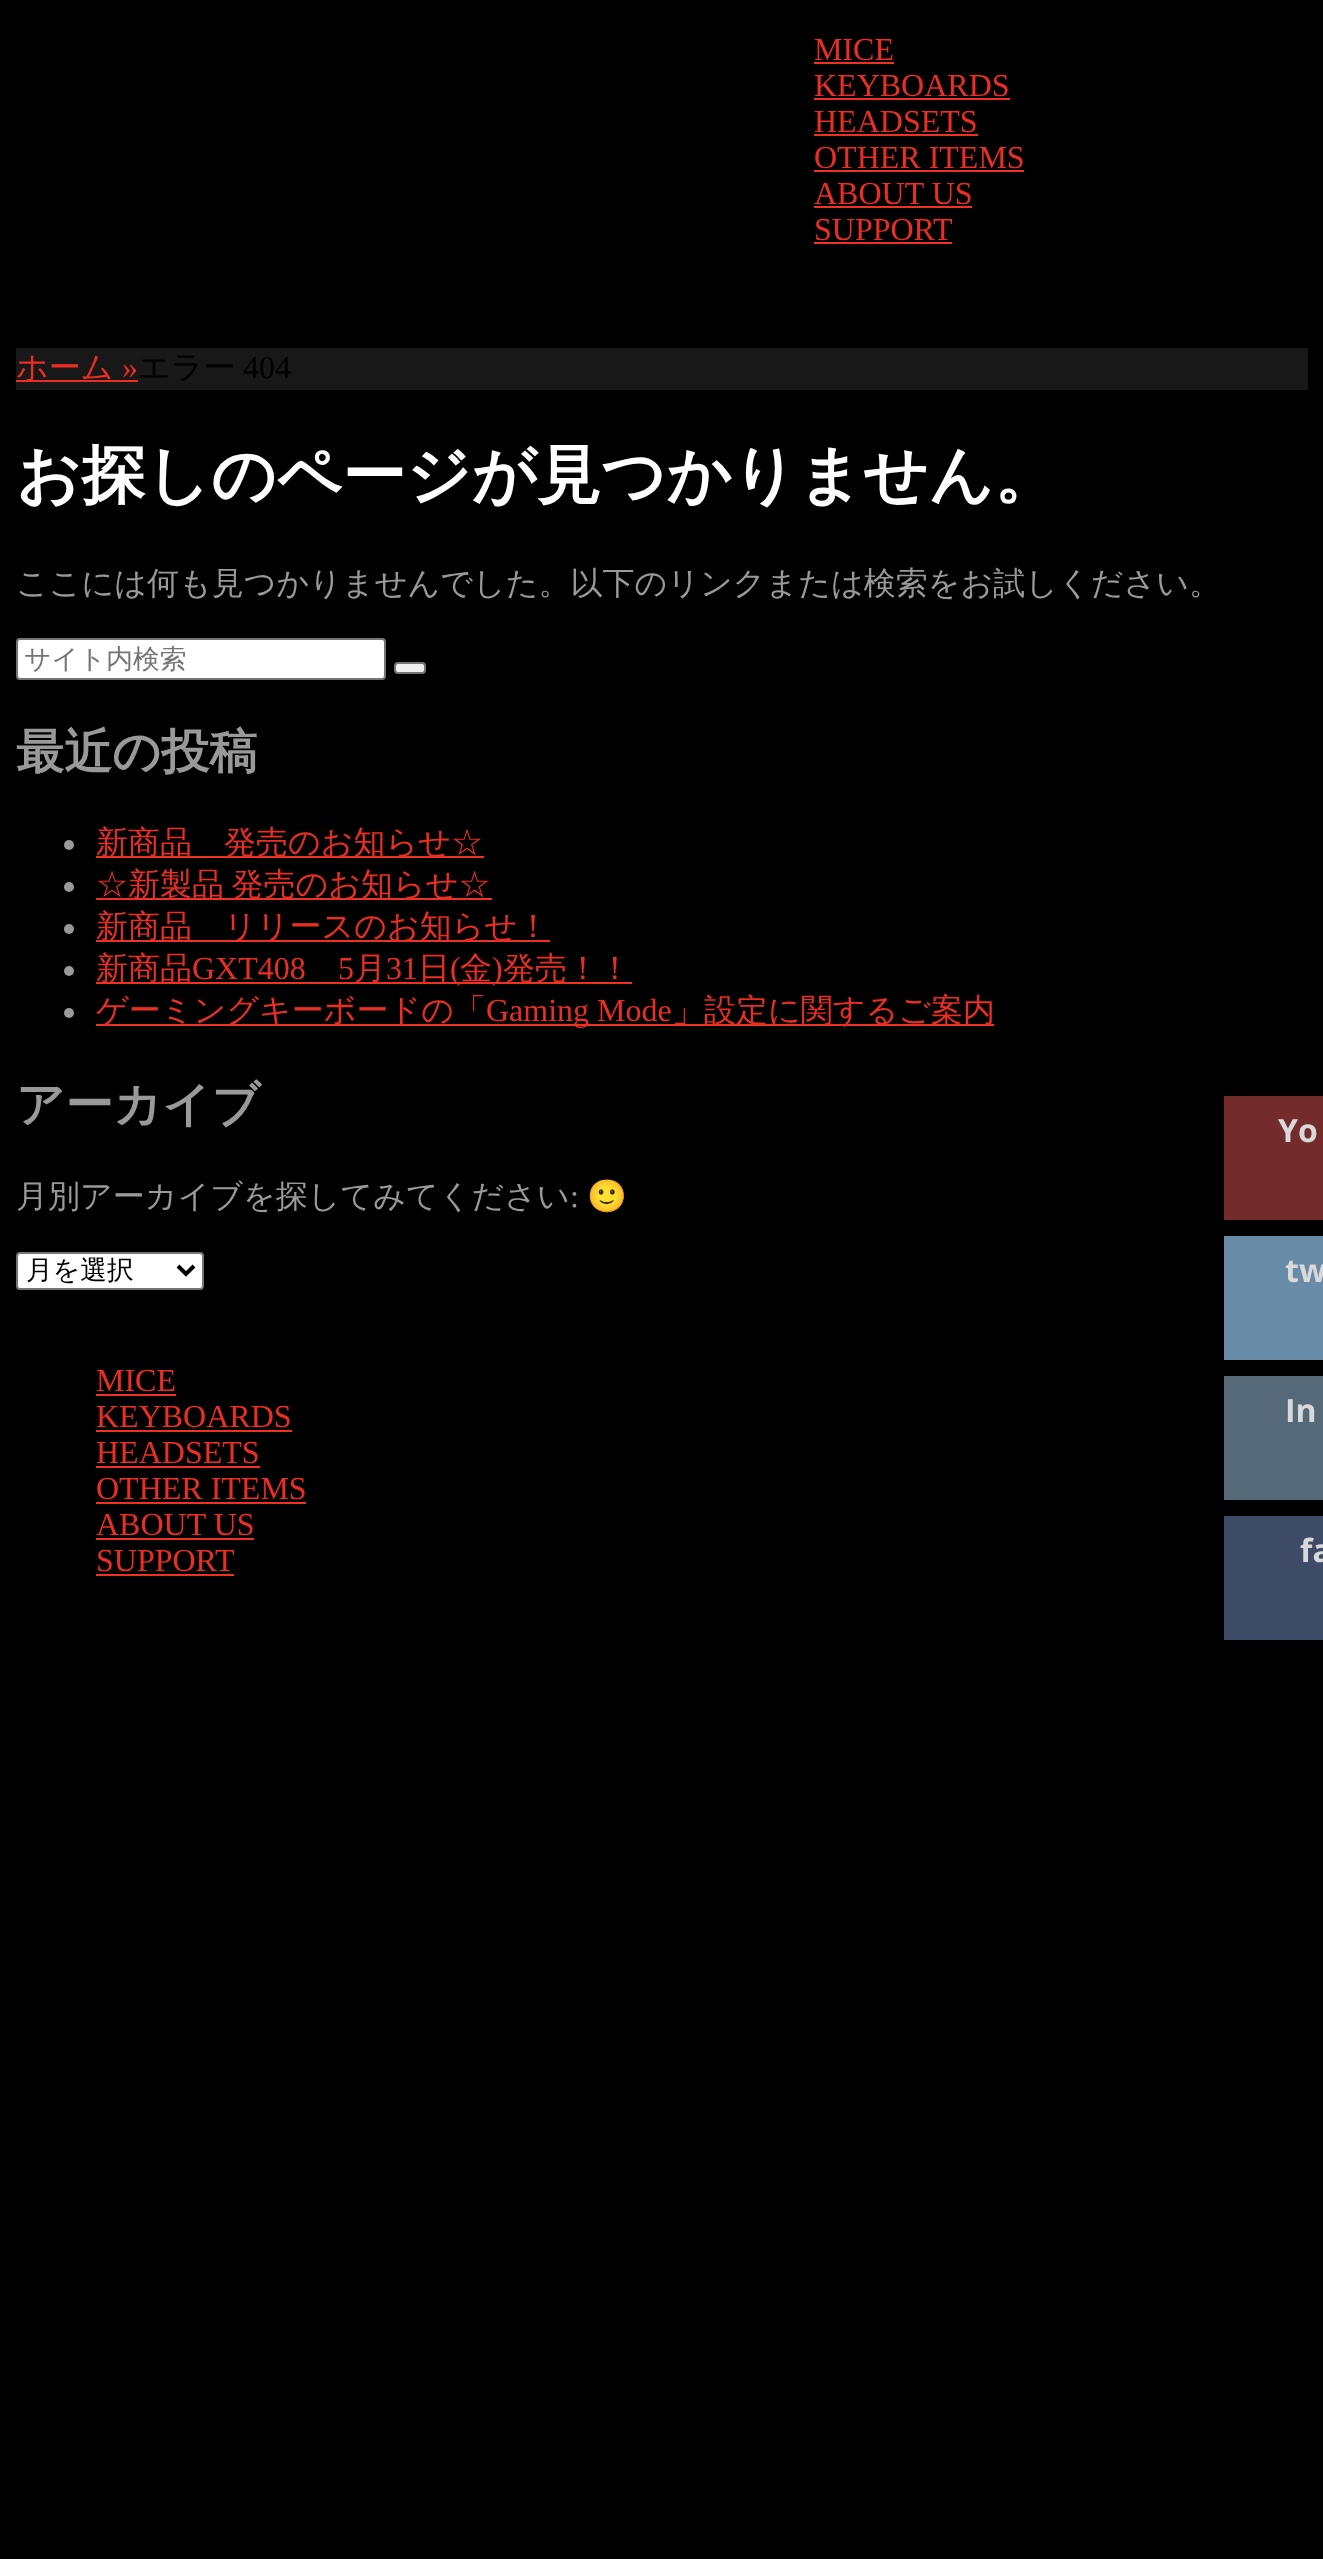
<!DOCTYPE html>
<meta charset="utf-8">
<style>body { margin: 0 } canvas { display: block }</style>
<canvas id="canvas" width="1323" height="2559"></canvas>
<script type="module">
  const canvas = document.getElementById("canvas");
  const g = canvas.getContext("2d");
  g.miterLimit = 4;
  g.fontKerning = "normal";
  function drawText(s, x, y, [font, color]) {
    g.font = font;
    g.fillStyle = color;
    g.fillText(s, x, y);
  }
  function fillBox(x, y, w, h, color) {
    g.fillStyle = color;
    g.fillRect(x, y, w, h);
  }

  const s1 = ["32px Liberation Serif", "#EA2E23"];
  const s2 = ["500 32px WenQuanYi Zen Hei", "#EA2E23"];
  const s3 = ["500 32px WenQuanYi Zen Hei", "#000000"];
  const s4 = ["32px Liberation Serif", "#000000"];
  const s5 = ["bold 64px WenQuanYi Zen Hei", "#FFFFFF"];
  const s6 = ["500 32px WenQuanYi Zen Hei", "#999999"];
  const s7 = ["500 26.75px WenQuanYi Zen Hei", "#757575"];
  const s8 = ["bold 48px WenQuanYi Zen Hei", "#999999"];
  const s9 = ["32px Liberation Serif", "#999999"];
  const s10 = ["32px Noto Color Emoji", "#999999"];
  const s11 = ["500 26.75px WenQuanYi Zen Hei", "#000000"];
  const s12 = ["bold 32px Open Sans", "#D9D9D9"];

  fillBox(0, 0, 1323, 2559, "#000000");
  drawText("MICE", 814, 60, s1);
  fillBox(814, 62, 80, 2, "#EE3123");
  drawText("KEYBOARDS", 814, 96, s1);
  fillBox(814, 98, 196, 2, "#EE3123");
  drawText("HEADSETS", 814, 132, s1);
  fillBox(814, 134, 164, 2, "#EE3123");
  drawText("OTHER ITEMS", 814, 168, s1);
  fillBox(814, 170, 210, 2, "#EE3123");
  drawText("ABOUT US", 814, 204, s1);
  fillBox(814, 206, 158, 2, "#EE3123");
  drawText("SUPPORT", 814, 240, s1);
  fillBox(814, 242, 138, 2, "#EE3123");
  fillBox(16, 348, 1292, 42, "#181818");
  fillBox(16, 380, 122, 2, "#EA2E23");
  drawText("ホーム", 16, 378, s2);
  drawText("»", 122, 378, s1);
  drawText("エラー", 138, 378, s3);
  drawText("404", 243, 378, s4);
  drawText("お探しのページが見つかりません。", 16, 497, s5);
  drawText("ここには何も見つかりませんでした。以下のリンクまたは検索をお試しください。", 16, 594, s6);
  g.fillStyle = "#FFFFFF";
  g.beginPath();
  g.roundRect(17, 639, 368, 40, 3);
  g.fill();
  g.strokeStyle = "#767676";
  g.lineWidth = 2;
  g.stroke();
  drawText("サイト内検索", 24, 668, s7);
  g.fillStyle = "#EFEFEF";
  g.beginPath();
  g.roundRect(395, 663, 30, 10, 3);
  g.fill();
  g.stroke();
  drawText("最近の投稿", 16, 768, s8);
  g.beginPath();
  g.arc(69, 845, 5, 0, Math.PI * 2);
  g.fill();
  fillBox(96, 856, 388, 2, "#EE3123");
  drawText("新商品　発売のお知らせ☆", 96, 853, s2);
  g.fillStyle = "#999999";
  g.beginPath();
  g.arc(69, 887, 5, 0, Math.PI * 2);
  g.fill();
  fillBox(96, 898, 396, 2, "#EE3123");
  g.wordSpacing = "-2px";
  drawText("☆新製品 発売のお知らせ☆", 96, 895, s2);
  g.fillStyle = "#999999";
  g.beginPath();
  g.arc(69, 929, 5, 0, Math.PI * 2);
  g.fill();
  fillBox(96, 940, 454, 2, "#EE3123");
  g.wordSpacing = "0px";
  drawText("新商品　リリースのお知らせ！", 96, 937, s2);
  g.fillStyle = "#999999";
  g.beginPath();
  g.arc(69, 971, 5, 0, Math.PI * 2);
  g.fill();
  fillBox(96, 982, 536, 2, "#EE3123");
  drawText("新商品", 96, 979, s2);
  drawText("GXT408", 192, 979, s1);
  drawText("5", 338, 979, s1);
  drawText("月", 354, 979, s2);
  drawText("31", 386, 979, s1);
  drawText("日", 418, 979, s2);
  drawText("(", 450, 979, s1);
  drawText("金", 460, 979, s2);
  drawText(")", 492, 979, s1);
  drawText("発売！！", 503, 979, s2);
  g.fillStyle = "#999999";
  g.beginPath();
  g.arc(69, 1013, 5, 0, Math.PI * 2);
  g.fill();
  fillBox(96, 1024, 898, 2, "#EE3123");
  drawText("ゲーミングキーボードの「", 96, 1021, s2);
  drawText("Gaming Mode", 486, 1021, s1);
  drawText("」設定に関するご案内", 672, 1021, s2);
  drawText("アーカイブ", 16, 1121, s8);
  drawText("月別アーカイブを探してみてください", 16, 1207, s6);
  drawText(":", 570, 1207, s9);
  drawText("🙂", 587, 1207, s10);
  g.fillStyle = "#FFFFFF";
  g.beginPath();
  g.roundRect(17, 1253, 186, 36, 3);
  g.fill();
  g.stroke();
  g.beginPath();
  g.moveTo(178, 1266);
  g.lineTo(186, 1274);
  g.lineTo(194, 1266);
  g.strokeStyle = "#000000";
  g.lineWidth = 4;
  g.stroke();
  drawText("月を選択", 26, 1279, s11);
  fillBox(1224, 1096, 99, 124, "#742B2B");
  drawText("Yo", 1278, 1142, s12);
  fillBox(1224, 1236, 99, 124, "#688CA8");
  drawText("tw", 1285, 1282, s12);
  fillBox(1224, 1376, 99, 124, "#556979");
  drawText("In", 1285, 1422, s12);
  fillBox(1224, 1516, 99, 124, "#3E4B66");
  drawText("fa", 1300, 1562, s12);
  drawText("MICE", 96, 1391, s1);
  fillBox(96, 1394, 80, 2, "#EE3123");
  drawText("KEYBOARDS", 96, 1427, s1);
  fillBox(96, 1430, 196, 2, "#EE3123");
  drawText("HEADSETS", 96, 1463, s1);
  fillBox(96, 1466, 164, 2, "#EE3123");
  drawText("OTHER ITEMS", 96, 1499, s1);
  fillBox(96, 1502, 210, 2, "#EE3123");
  drawText("ABOUT US", 96, 1535, s1);
  fillBox(96, 1538, 158, 2, "#EE3123");
  drawText("SUPPORT", 96, 1571, s1);
  fillBox(96, 1574, 138, 2, "#EE3123");
</script>
